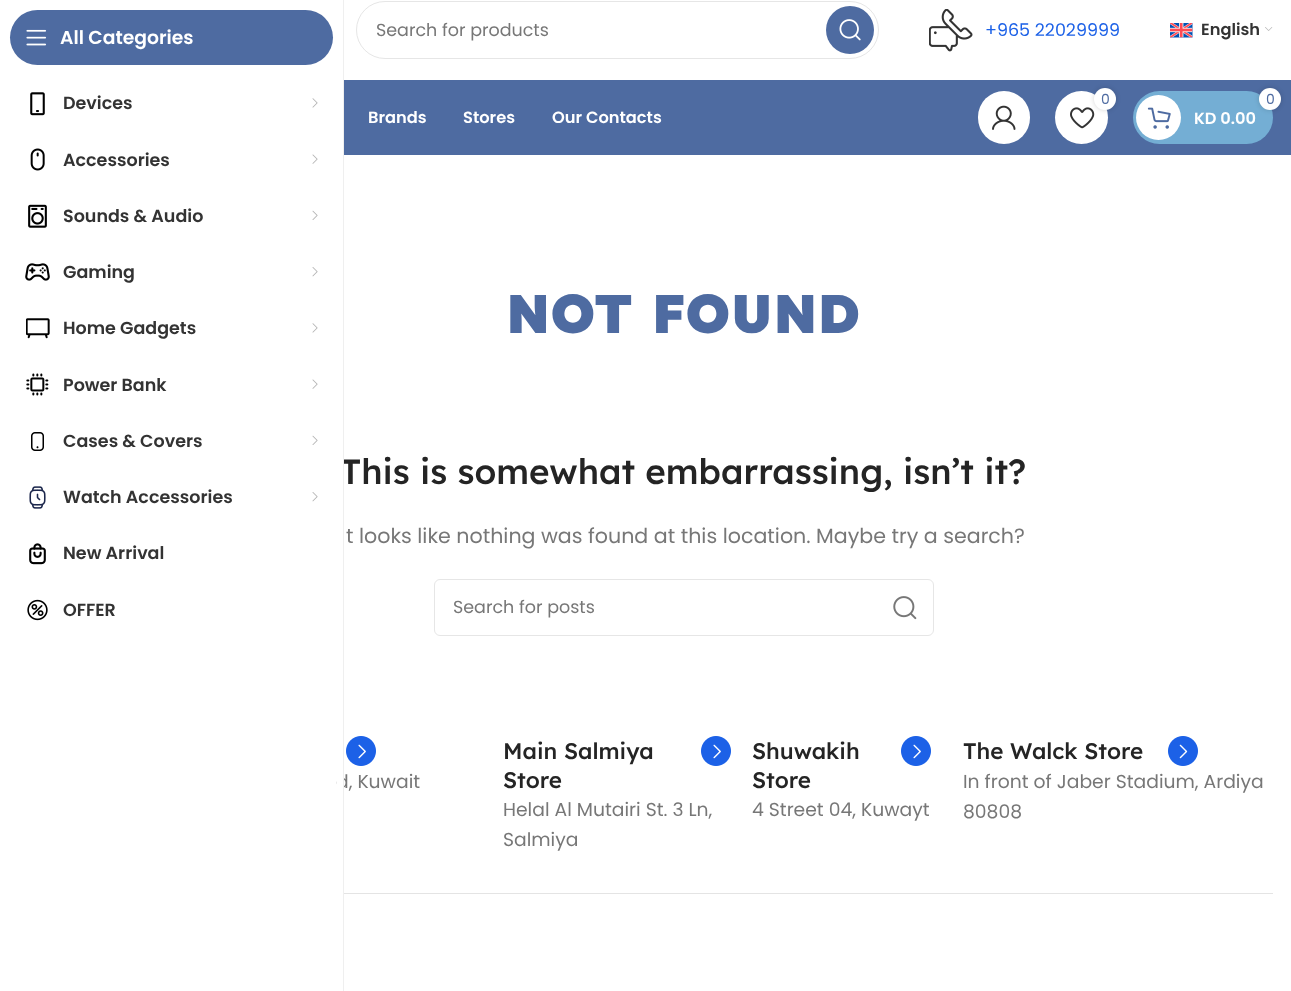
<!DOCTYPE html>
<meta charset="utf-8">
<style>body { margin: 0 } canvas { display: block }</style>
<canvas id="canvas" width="1291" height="991"></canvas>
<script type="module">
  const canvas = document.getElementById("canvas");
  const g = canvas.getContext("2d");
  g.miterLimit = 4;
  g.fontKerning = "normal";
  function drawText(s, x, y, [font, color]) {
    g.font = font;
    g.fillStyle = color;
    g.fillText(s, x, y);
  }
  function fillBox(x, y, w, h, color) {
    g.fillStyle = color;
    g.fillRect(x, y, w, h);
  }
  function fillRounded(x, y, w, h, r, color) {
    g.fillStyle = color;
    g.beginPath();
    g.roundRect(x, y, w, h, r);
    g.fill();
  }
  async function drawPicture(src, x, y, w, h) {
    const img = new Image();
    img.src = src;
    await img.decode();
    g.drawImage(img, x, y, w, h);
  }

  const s1 = ["500 35px Lexend Deca", "#242424"];
  const s2 = ["18.75px Poppins", "#777777"];
  const s3 = ["600 18.75px Poppins", "#FFFFFF"];
  const s4 = ["600 17.5px Poppins", "#333333"];
  const s5 = ["17.5px Poppins", "#777777"];
  const s6 = ["17.5px Poppins", "#1C61E7"];
  const s7 = ["600 16.25px Poppins", "#333333"];
  const s8 = ["600 16.25px Poppins", "#FFFFFF"];
  const s9 = ["14px Poppins", "#4E6BA1"];
  const s10 = ["900 54.25px Lexend Deca", "#4E6BA1"];
  const s11 = ["20.6px Poppins", "#777777"];
  const s12 = ["500 22.5px Lexend Deca", "#242424"];

  fillBox(0, 0, 1291, 991, "#FFFFFF");
  drawText("This is somewhat embarrassing, isn’t it?", 340, 484, s1);
  drawText("d, Kuwait", 336, 788, s2);
  fillBox(337, 459, 6, 330, "#FFFFFF");
  fillBox(343, 0, 1, 991, "#EFEFEF");
  fillRounded(10, 10, 323, 55, 27.5, "#4E6BA1");
  await drawPicture("pic1.png", 26, 29, 21, 17);
  drawText("All Categories", 60, 44, s3);
  await drawPicture("pic2.png", 30, 92, 15, 24);
  drawText("Devices", 63, 109, s4);
  await drawPicture("pic3.png", 312, 98, 6, 10);
  await drawPicture("pic4.png", 30, 148, 15, 23);
  drawText("Accessories", 63, 166, s4);
  await drawPicture("pic5.png", 312, 154, 6, 10);
  await drawPicture("pic6.png", 28, 204, 19, 24);
  drawText("Sounds & Audio", 63, 222, s4);
  await drawPicture("pic7.png", 312, 210, 6, 10);
  await drawPicture("pic8.png", 25, 263, 25, 18);
  drawText("Gaming", 63, 278, s4);
  await drawPicture("pic9.png", 312, 267, 6, 10);
  await drawPicture("pic10.png", 26, 318, 24, 21);
  drawText("Home Gadgets", 63, 334, s4);
  await drawPicture("pic3.png", 312, 323, 6, 10);
  await drawPicture("pic11.png", 26, 373, 23, 23);
  drawText("Power Bank", 63, 391, s4);
  await drawPicture("pic5.png", 312, 379, 6, 10);
  await drawPicture("pic12.png", 31, 432, 13, 19);
  drawText("Cases & Covers", 63, 447, s4);
  await drawPicture("pic7.png", 312, 435, 6, 10);
  await drawPicture("pic13.png", 29, 486, 17, 23);
  drawText("Watch Accessories", 63, 503, s4);
  await drawPicture("pic9.png", 312, 492, 6, 10);
  await drawPicture("pic14.png", 29, 543, 17, 22);
  drawText("New Arrival", 63, 559, s4);
  await drawPicture("pic15.png", 27, 599, 21, 22);
  drawText("OFFER", 63, 616, s4);
  g.beginPath();
  g.roundRect(356.5, 1.5, 522, 57, 28.5);
  g.strokeStyle = "#E6E6E6";
  g.stroke();
  drawText("Search for products", 376, 36, s5);
  g.fillStyle = "#4E6BA1";
  g.beginPath();
  g.arc(850, 30, 24, 0, Math.PI * 2);
  g.fill();
  await drawPicture("pic16.png", 839, 19, 22, 22);
  await drawPicture("pic17.png", 929, 9, 44, 43);
  drawText("+965 22029999", 985, 36, s6);
  await drawPicture("pic18.png", 1170, 23, 23, 15);
  drawText("English", 1201, 35, s7);
  await drawPicture("pic19.png", 1265, 27, 8, 4);
  fillBox(344, 80, 947, 75, "#4E6BA1");
  drawText("Brands", 368, 123, s8);
  drawText("Stores", 463, 123, s8);
  drawText("Our Contacts", 552, 123, s8);
  fillRounded(978, 91, 52, 53, 26, "#FFFFFF");
  await drawPicture("pic20.png", 992, 105, 24, 25);
  g.beginPath();
  g.arc(1081.5, 117.5, 26.5, 0, Math.PI * 2);
  g.fill();
  await drawPicture("pic21.png", 1070, 107, 25, 22);
  g.fillStyle = "rgba(0, 0, 0, 0.17)";
  g.filter = "blur(2.5px)";
  g.beginPath();
  g.roundRect(1094, 88, 22, 22, 11);
  g.fill();
  g.filter = "none";
  g.fillStyle = "#FFFFFF";
  g.beginPath();
  g.arc(1105, 99, 11, 0, Math.PI * 2);
  g.fill();
  drawText("0", 1101, 104, s9);
  fillRounded(1133, 91, 140, 53, 26.5, "#74AED4");
  g.fillStyle = "#FFFFFF";
  g.beginPath();
  g.arc(1158.5, 117.5, 22.5, 0, Math.PI * 2);
  g.fill();
  g.fillStyle = "rgba(0, 0, 0, 0.17)";
  g.filter = "blur(2.5px)";
  g.beginPath();
  g.roundRect(1259, 88, 22, 22, 11);
  g.fill();
  g.filter = "none";
  g.fillStyle = "#FFFFFF";
  g.beginPath();
  g.arc(1270, 99, 11, 0, Math.PI * 2);
  g.fill();
  drawText("0", 1266, 104, s9);
  await drawPicture("pic22.png", 1147, 107, 24, 22);
  drawText("KD 0.00", 1194, 124, s8);
  drawText("NOT FOUND", 506, 333, s10);
  drawText("t looks like nothing was found at this location. Maybe try a search?", 346, 543, s11);
  g.beginPath();
  g.roundRect(434.5, 579.5, 499, 56, 5.5);
  g.stroke();
  drawText("Search for posts", 453, 613, s5);
  await drawPicture("pic23.png", 893, 596, 24, 24);
  fillBox(344, 893, 929, 1, "#E4E4E4");
  await drawPicture("pic24.png", 346, 736, 30, 30);
  drawText("Main Salmiya", 503, 759, s12);
  drawText("Store", 503, 788, s12);
  await drawPicture("pic24.png", 701, 736, 30, 30);
  drawText("Helal Al Mutairi St. 3 Ln,", 503, 816, s2);
  drawText("Salmiya", 503, 846, s2);
  drawText("Shuwakih", 752, 759, s12);
  drawText("Store", 752, 788, s12);
  await drawPicture("pic24.png", 901, 736, 30, 30);
  drawText("4 Street 04, Kuwayt", 752, 816, s2);
  drawText("The Walck Store", 963, 759, s12);
  await drawPicture("pic25.png", 1168, 736, 30, 30);
  drawText("In front of Jaber Stadium, Ardiya", 963, 788, s2);
  drawText("80808", 963, 818, s2);
</script>
